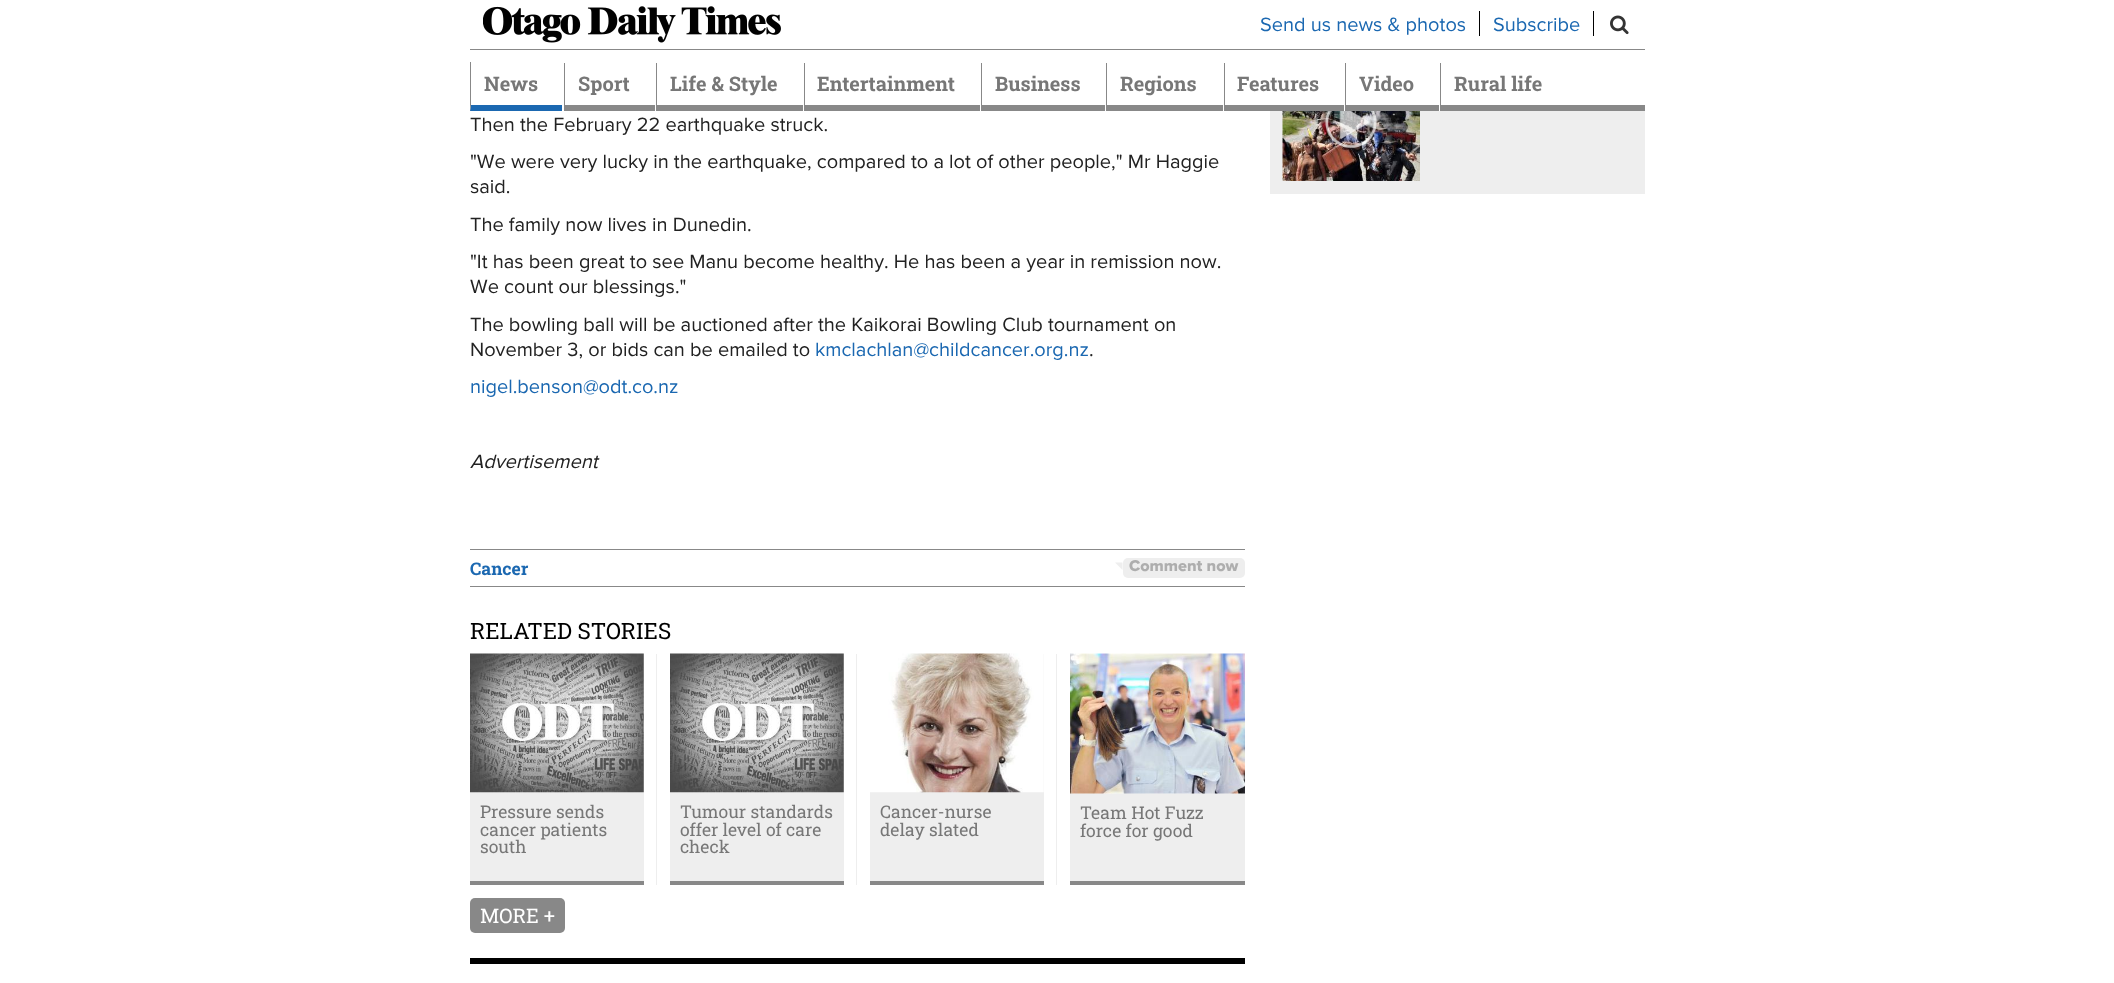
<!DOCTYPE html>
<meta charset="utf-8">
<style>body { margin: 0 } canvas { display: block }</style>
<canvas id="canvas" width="2114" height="983"></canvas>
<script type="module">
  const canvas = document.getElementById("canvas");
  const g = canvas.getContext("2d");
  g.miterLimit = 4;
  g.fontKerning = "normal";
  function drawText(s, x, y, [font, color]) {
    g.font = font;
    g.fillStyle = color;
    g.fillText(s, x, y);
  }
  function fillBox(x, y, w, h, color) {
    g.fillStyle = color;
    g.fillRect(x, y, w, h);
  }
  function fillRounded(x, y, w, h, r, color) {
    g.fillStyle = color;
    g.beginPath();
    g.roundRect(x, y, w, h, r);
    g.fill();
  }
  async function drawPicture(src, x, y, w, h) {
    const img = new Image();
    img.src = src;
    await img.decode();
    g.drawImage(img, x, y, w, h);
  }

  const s1 = ["20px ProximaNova", "#1B68B1"];
  const s2 = ["bold 20px Roboto Slab", "#777777"];
  const s3 = ["20px ProximaNova", "#222222"];
  const s4 = ["italic 20px ProximaNova", "#222222"];
  const s5 = ["bold 17.5px Roboto Slab", "#1B68B1"];
  const s6 = ["800 16.25px ProximaNova", "#AEAEAE"];
  const s7 = ["22.5px Roboto Slab", "#000000"];
  const s8 = ["17.5px Roboto Slab", "#777777"];
  const s9 = ["20px Roboto Slab", "#FFFFFF"];

  fillBox(0, 0, 2114, 983, "#FFFFFF");
  fillBox(470, 49, 1175, 1, "#888888");
  await drawPicture("pic1.png", 483, 6, 298, 37);
  fillBox(1479, 11, 1, 25, "#000000");
  drawText("Send us news & photos", 1260, 31, s1);
  fillBox(1593, 11, 1, 25, "#000000");
  drawText("Subscribe", 1493, 31, s1);
  await drawPicture("pic2.png", 1610, 15, 19, 20);
  g.beginPath();
  g.moveTo(562, 111);
  g.lineTo(470, 111);
  g.lineTo(471, 105);
  g.lineTo(562, 105);
  g.closePath();
  g.fill();
  g.fillStyle = "#888888";
  g.beginPath();
  g.moveTo(470, 111);
  g.lineTo(470, 62);
  g.lineTo(471, 62);
  g.lineTo(471, 105);
  g.closePath();
  g.fill();
  drawText("News", 484, 91, s2);
  fillBox(564, 105, 91, 6, "#888888");
  fillBox(564, 63, 1, 48, "#888888");
  drawText("Sport", 578, 91, s2);
  fillBox(656, 105, 147, 6, "#888888");
  fillBox(656, 63, 1, 48, "#888888");
  drawText("Life & Style", 670, 91, s2);
  fillBox(804, 105, 176, 6, "#888888");
  fillBox(804, 63, 1, 48, "#888888");
  drawText("Entertainment", 817, 91, s2);
  fillBox(981, 105, 124, 6, "#888888");
  fillBox(981, 63, 1, 48, "#888888");
  drawText("Business", 995, 91, s2);
  fillBox(1106, 105, 117, 6, "#888888");
  fillBox(1106, 63, 1, 48, "#888888");
  drawText("Regions", 1120, 91, s2);
  fillBox(1224, 105, 120, 6, "#888888");
  fillBox(1224, 63, 1, 48, "#888888");
  drawText("Features", 1237, 91, s2);
  fillBox(1345, 105, 94, 6, "#888888");
  fillBox(1345, 63, 1, 48, "#888888");
  drawText("Video", 1359, 91, s2);
  fillBox(1440, 105, 205, 6, "#888888");
  fillBox(1440, 63, 1, 48, "#888888");
  drawText("Rural life", 1454, 91, s2);
  drawText("Then the February 22 earthquake struck.", 470, 131, s3);
  drawText("\"We were very lucky in the earthquake, compared to a lot of other people,\" Mr Haggie", 470, 168, s3);
  drawText("said.", 470, 193, s3);
  drawText("The family now lives in Dunedin.", 470, 231, s3);
  drawText("\"It has been great to see Manu become healthy. He has been a year in remission now.", 470, 268, s3);
  drawText("We count our blessings.\"", 470, 293, s3);
  drawText("The bowling ball will be auctioned after the Kaikorai Bowling Club tournament on", 470, 331, s3);
  drawText("November 3, or bids can be emailed to", 470, 356, s3);
  drawText("kmclachlan@childcancer.org.nz", 815, 356, s1);
  drawText(".", 1089, 356, s3);
  drawText("nigel.benson@odt.co.nz", 470, 393, s1);
  drawText("Advertisement", 470, 468, s4);
  fillBox(470, 549, 775, 1, "#888888");
  fillBox(470, 586, 775, 1, "#888888");
  drawText("Cancer", 470, 575, s5);
  fillRounded(1123, 558, 122, 20, 5, "#EEEEEE");
  g.beginPath();
  g.moveTo(1122.5, 562.5);
  g.lineTo(1122.5, 570);
  g.lineTo(1115, 562.5);
  g.closePath();
  g.fill();
  drawText("Comment now", 1129, 571, s6);
  drawText("RELATED STORIES", 470, 639, s7);
  fillBox(656, 654, 1, 231, "#EEEEEE");
  fillBox(470, 654, 174, 227, "#EEEEEE");
  fillBox(470, 881, 174, 4, "#888888");
  await drawPicture("pic3.png", 470, 653, 174, 140);
  drawText("Pressure sends", 480, 818, s8);
  drawText("cancer patients", 480, 836, s8);
  drawText("south", 480, 853, s8);
  fillBox(856, 654, 1, 231, "#EEEEEE");
  fillBox(670, 654, 174, 227, "#EEEEEE");
  fillBox(670, 881, 174, 4, "#888888");
  await drawPicture("pic3.png", 670, 653, 174, 140);
  drawText("Tumour standards", 680, 818, s8);
  drawText("offer level of care", 680, 836, s8);
  drawText("check", 680, 853, s8);
  fillBox(1056, 654, 1, 231, "#EEEEEE");
  fillBox(870, 654, 174, 227, "#EEEEEE");
  fillBox(870, 881, 174, 4, "#888888");
  await drawPicture("pic4.png", 870, 653, 174, 140);
  drawText("Cancer-nurse", 880, 818, s8);
  drawText("delay slated", 880, 836, s8);
  fillBox(1070, 793, 175, 88, "#EEEEEE");
  fillBox(1070, 881, 175, 4, "#888888");
  await drawPicture("pic5.png", 1070, 653, 175, 141);
  drawText("Team Hot Fuzz", 1080, 819, s8);
  drawText("force for good", 1080, 837, s8);
  fillRounded(470, 898, 95, 35, 5, "#888888");
  drawText("MORE +", 480, 923, s9);
  fillBox(470, 958, 775, 6, "#000000");
  fillBox(1270, 111, 375, 83, "#EEEEEE");
  await drawPicture("pic6.png", 1282, 111, 138, 70);
  await drawPicture("pic7.png", 1325, 111, 52, 38);
</script>
